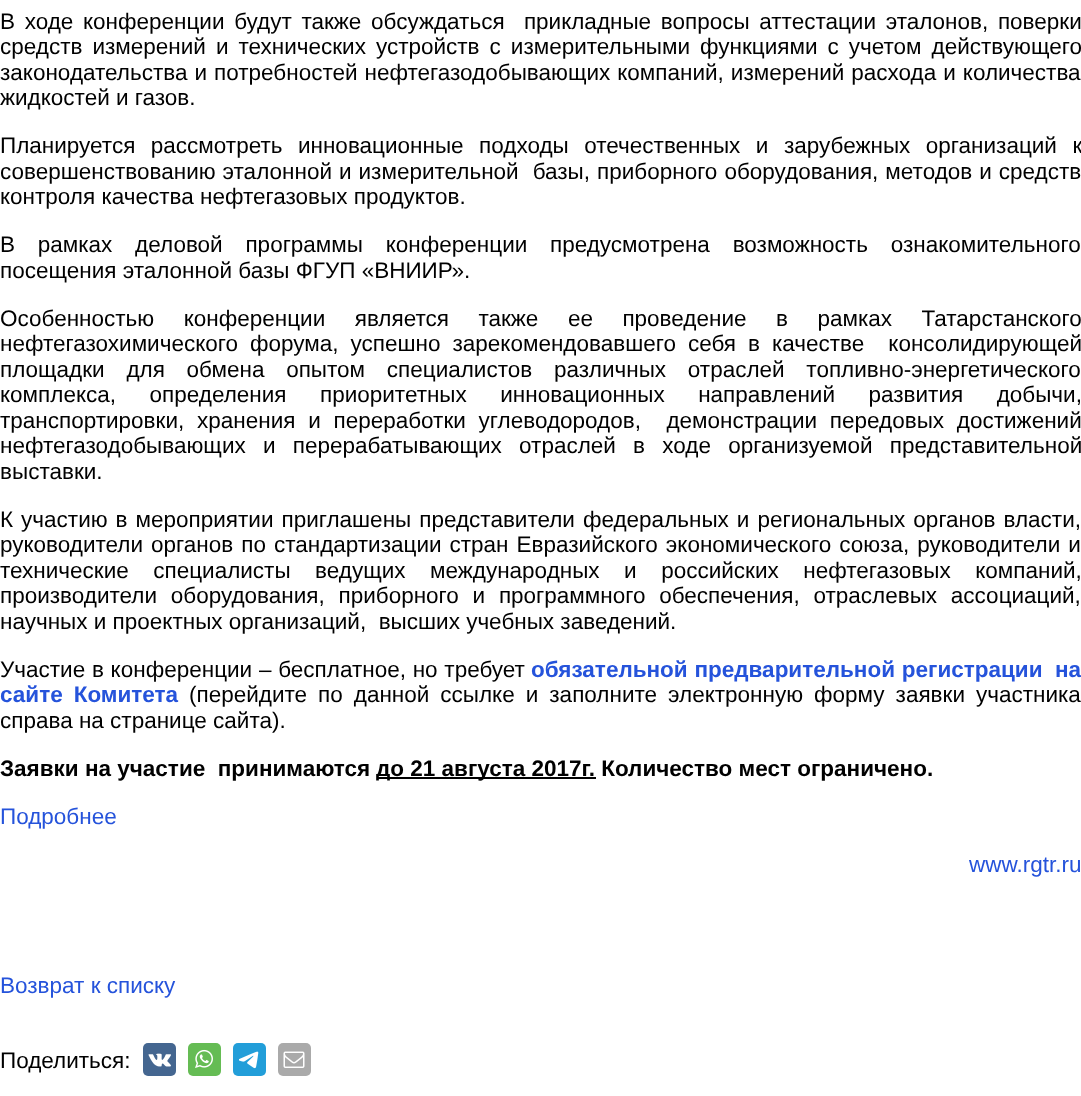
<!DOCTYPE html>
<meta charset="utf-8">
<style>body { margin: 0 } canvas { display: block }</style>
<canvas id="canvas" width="1081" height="1096"></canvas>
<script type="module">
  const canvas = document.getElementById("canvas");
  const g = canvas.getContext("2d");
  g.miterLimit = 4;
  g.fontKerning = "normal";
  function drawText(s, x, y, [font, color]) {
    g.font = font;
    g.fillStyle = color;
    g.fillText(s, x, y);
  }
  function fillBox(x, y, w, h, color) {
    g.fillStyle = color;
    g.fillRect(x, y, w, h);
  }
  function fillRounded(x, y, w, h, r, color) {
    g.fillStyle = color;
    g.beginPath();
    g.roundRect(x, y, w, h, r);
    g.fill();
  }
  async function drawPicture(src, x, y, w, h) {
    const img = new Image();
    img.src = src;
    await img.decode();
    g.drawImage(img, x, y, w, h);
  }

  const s1 = ["22.5px Liberation Sans", "#000000"];
  const s2 = ["bold 22.5px Liberation Sans", "#2553DB"];
  const s3 = ["bold 22.5px Liberation Sans", "#000000"];
  const s4 = ["22.5px Liberation Sans", "#2553DB"];

  fillBox(0, 0, 1081, 1096, "#FFFFFF");
  g.wordSpacing = "3.4px";
  drawText("В ходе конференции будут также обсуждаться  прикладные вопросы аттестации эталонов, поверки", 0, 29, s1);
  g.wordSpacing = "3.75px";
  drawText("средств измерений и технических устройств с измерительными функциями с учетом действующего", 0, 54, s1);
  g.wordSpacing = "0.75px";
  drawText("законодательства и потребностей нефтегазодобывающих компаний, измерений расхода и количества", 0, 80, s1);
  g.wordSpacing = "0px";
  drawText("жидкостей и газов.", 0, 105, s1);
  g.wordSpacing = "9.25px";
  drawText("Планируется рассмотреть инновационные подходы отечественных и зарубежных организаций к", 0, 153, s1);
  g.wordSpacing = "0.75px";
  drawText("совершенствованию эталонной и измерительной  базы, приборного оборудования, методов и средств", 0, 179, s1);
  g.wordSpacing = "0px";
  drawText("контроля качества нефтегазовых продуктов.", 0, 204, s1);
  g.wordSpacing = "16.5px";
  drawText("В рамках деловой программы конференции предусмотрена возможность ознакомительного", 0, 252, s1);
  g.wordSpacing = "0px";
  drawText("посещения эталонной базы ФГУП «ВНИИР».", 0, 278, s1);
  g.wordSpacing = "23.25px";
  drawText("Особенностью конференции является также ее проведение в рамках Татарстанского", 0, 326, s1);
  g.wordSpacing = "5.75px";
  drawText("нефтегазохимического форума, успешно зарекомендовавшего себя в качестве  консолидирующей", 0, 351, s1);
  g.wordSpacing = "15.5px";
  drawText("площадки для обмена опытом специалистов различных отраслей топливно-энергетического", 0, 377, s1);
  g.wordSpacing = "27.25px";
  drawText("комплекса, определения приоритетных инновационных направлений развития добычи,", 0, 402, s1);
  g.wordSpacing = "6.5px";
  drawText("транспортировки, хранения и переработки углеводородов,  демонстрации передовых достижений", 0, 428, s1);
  g.wordSpacing = "11px";
  drawText("нефтегазодобывающих и перерабатывающих отраслей в ходе организуемой представительной", 0, 453, s1);
  g.wordSpacing = "0px";
  drawText("выставки.", 0, 479, s1);
  g.wordSpacing = "1.75px";
  drawText("К участию в мероприятии приглашены представители федеральных и региональных органов власти,", 0, 527, s1);
  drawText("руководители органов по стандартизации стран Евразийского экономического союза, руководители и", 0, 552, s1);
  g.wordSpacing = "18.25px";
  drawText("технические специалисты ведущих международных и российских нефтегазовых компаний,", 0, 578, s1);
  g.wordSpacing = "7.5px";
  drawText("производители оборудования, приборного и программного обеспечения, отраслевых ассоциаций,", 0, 603, s1);
  g.wordSpacing = "0px";
  drawText("научных и проектных организаций,  высших учебных заведений.", 0, 629, s1);
  g.wordSpacing = "0.5px";
  drawText("Участие в конференции – бесплатное, но требует", 0, 677, s1);
  drawText("обязательной предварительной регистрации", 531, 677, s2);
  g.wordSpacing = "0px";
  drawText("на", 1055, 677, s2);
  g.wordSpacing = "4.75px";
  drawText("сайте Комитета", 0, 702, s2);
  drawText("(перейдите по данной ссылке и заполните электронную форму заявки участника", 189, 702, s1);
  g.wordSpacing = "0px";
  drawText("справа на странице сайта).", 0, 728, s1);
  drawText("Заявки на участие  принимаются", 0, 776, s3);
  fillBox(377, 777, 219, 2, "#000000");
  drawText("до 21 августа 2017г. Количество мест ограничено.", 376, 776, s3);
  drawText("Подробнее", 0, 824, s4);
  drawText("www.rgtr.ru", 969, 872, s4);
  drawText("Возврат к списку", 0, 993, s4);
  drawText("Поделиться:", 0, 1068, s1);
  fillRounded(143, 1043, 33, 33, 5, "#446690");
  await drawPicture("pic1.png", 148, 1053, 23, 14);
  fillRounded(188, 1043, 33, 33, 5, "#65BC54");
  await drawPicture("pic2.png", 195, 1049, 18, 19);
  fillRounded(233, 1043, 33, 33, 5, "#229ED9");
  await drawPicture("pic3.png", 239, 1051, 20, 18);
  fillRounded(278, 1043, 33, 33, 5, "#AAAAAA");
  await drawPicture("pic4.png", 283, 1051, 22, 17);
</script>
